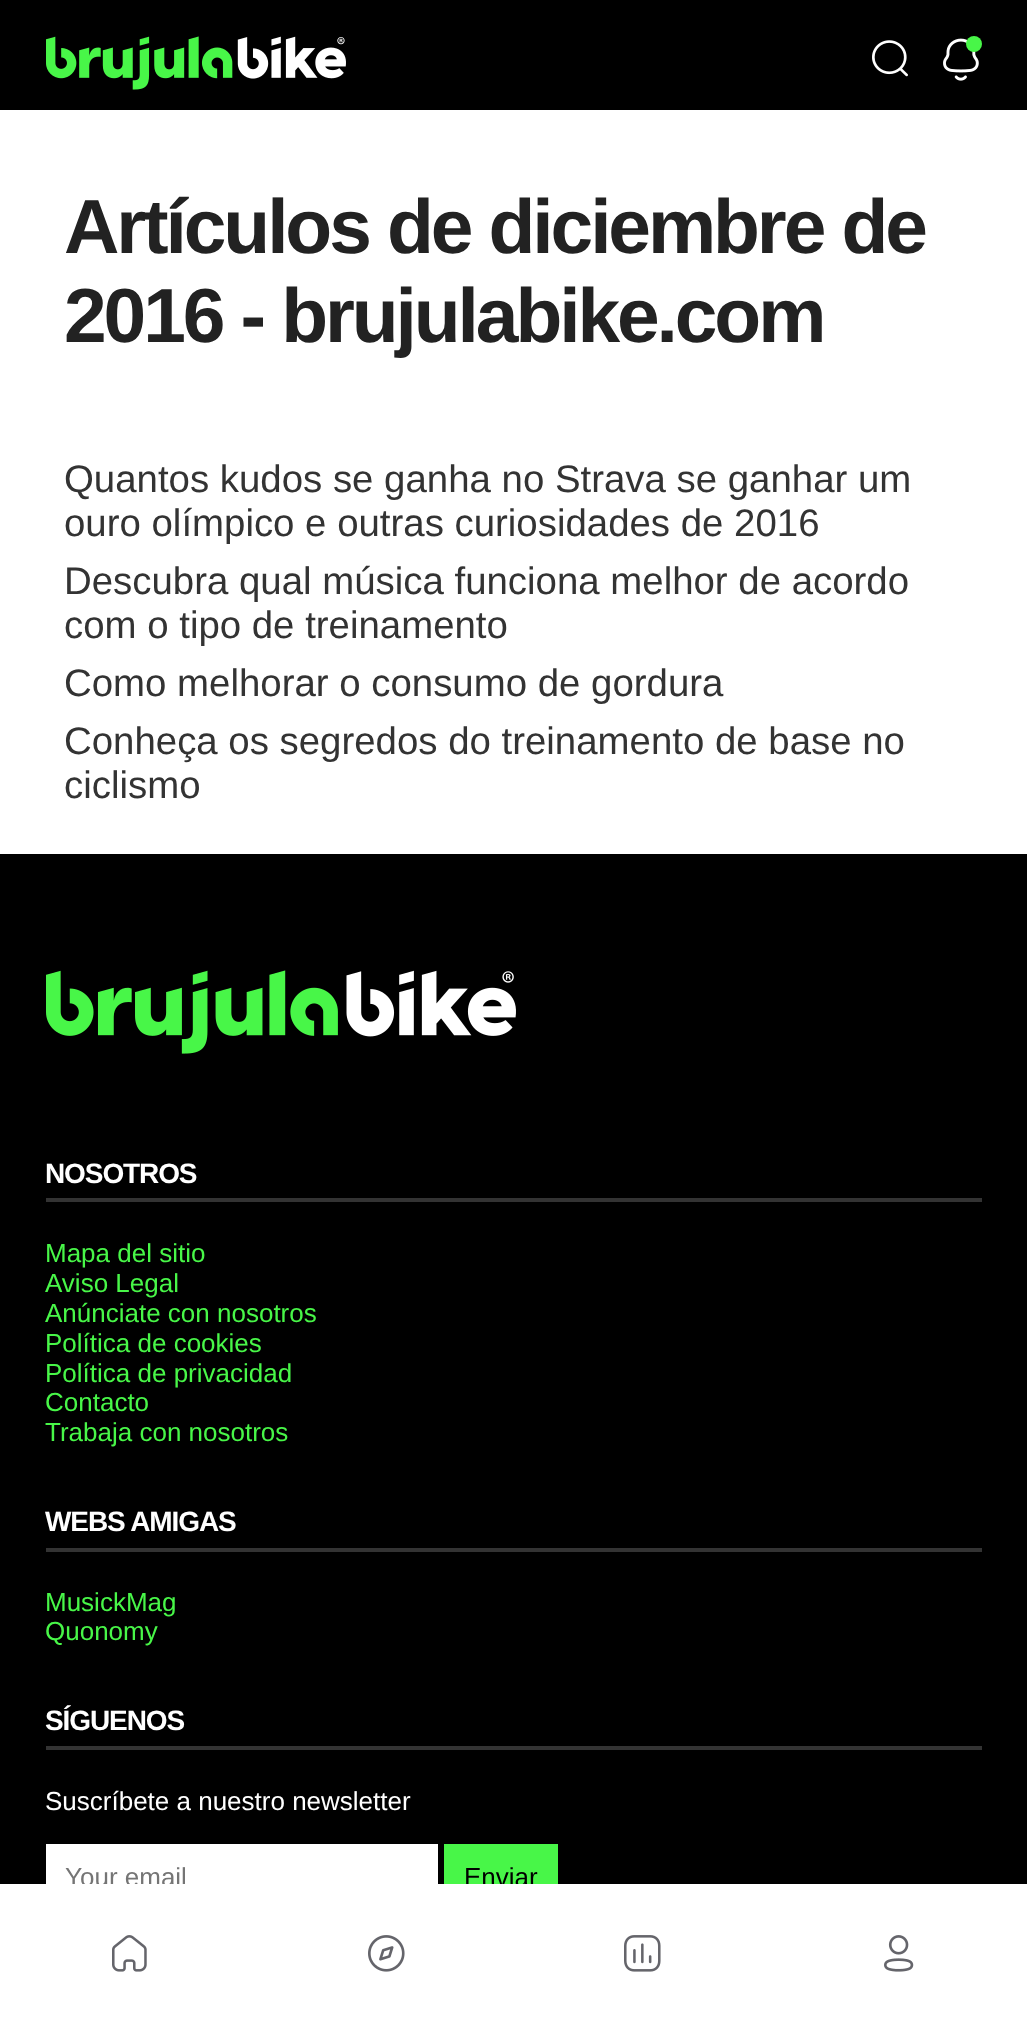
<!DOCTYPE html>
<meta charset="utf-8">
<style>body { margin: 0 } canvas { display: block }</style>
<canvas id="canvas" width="1027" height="2023"></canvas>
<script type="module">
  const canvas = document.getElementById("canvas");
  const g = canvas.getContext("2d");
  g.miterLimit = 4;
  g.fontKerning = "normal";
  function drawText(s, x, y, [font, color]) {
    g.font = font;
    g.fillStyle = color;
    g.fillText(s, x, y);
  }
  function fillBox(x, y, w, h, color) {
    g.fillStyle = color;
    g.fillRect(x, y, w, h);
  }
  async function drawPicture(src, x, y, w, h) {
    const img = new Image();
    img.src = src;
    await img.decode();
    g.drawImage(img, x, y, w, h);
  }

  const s1 = ["bold 76.75px Liberation Sans", "#222222"];
  const s2 = ["38.4px Liberation Sans", "#333333"];
  const s3 = ["bold 28px Liberation Sans", "#FFFFFF"];
  const s4 = ["26px Liberation Sans", "#48F648"];
  const s5 = ["26px Liberation Sans", "#FFFFFF"];
  const s6 = ["26px Liberation Sans", "#757575"];
  const s7 = ["26px Liberation Sans", "#000000"];

  fillBox(0, 0, 1027, 2023, "#FFFFFF");
  fillBox(0, 0, 1027, 110, "#000000");
  await drawPicture("pic1.png", 46, 36, 300, 54);
  await drawPicture("pic2.png", 872, 40, 36, 37);
  await drawPicture("pic3.png", 943, 38, 36, 43);
  g.fillStyle = "#48F648";
  g.beginPath();
  g.arc(974, 44, 8, 0, Math.PI * 2);
  g.fill();
  g.letterSpacing = "-3.1px";
  drawText("Artículos de diciembre de", 64, 253, s1);
  drawText("2016 - brujulabike.com", 64, 342, s1);
  g.letterSpacing = "0px";
  drawText("Quantos kudos se ganha no Strava se ganhar um", 64, 492, s2);
  drawText("ouro olímpico e outras curiosidades de 2016", 64, 536, s2);
  drawText("Descubra qual música funciona melhor de acordo", 64, 594, s2);
  drawText("com o tipo de treinamento", 64, 638, s2);
  drawText("Como melhorar o consumo de gordura", 64, 696, s2);
  drawText("Conheça os segredos do treinamento de base no", 64, 754, s2);
  drawText("ciclismo", 64, 798, s2);
  fillBox(0, 854, 1027, 1030, "#000000");
  await drawPicture("pic4.png", 46, 970, 470, 84);
  fillBox(46, 1198, 936, 4, "#333333");
  g.letterSpacing = "-1.1px";
  drawText("NOSOTROS", 45, 1183, s3);
  g.letterSpacing = "0px";
  drawText("Mapa del sitio", 45, 1262, s4);
  drawText("Aviso Legal", 45, 1292, s4);
  drawText("Anúnciate con nosotros", 45, 1322, s4);
  drawText("Política de cookies", 45, 1352, s4);
  drawText("Política de privacidad", 45, 1382, s4);
  drawText("Contacto", 45, 1411, s4);
  drawText("Trabaja con nosotros", 45, 1441, s4);
  fillBox(46, 1548, 936, 4, "#333333");
  g.letterSpacing = "-1.1px";
  drawText("WEBS AMIGAS", 45, 1531, s3);
  g.letterSpacing = "0px";
  drawText("MusickMag", 45, 1611, s4);
  drawText("Quonomy", 45, 1640, s4);
  fillBox(46, 1746, 936, 4, "#333333");
  g.letterSpacing = "-1.1px";
  drawText("SÍGUENOS", 45, 1730, s3);
  g.letterSpacing = "0px";
  drawText("Suscríbete a nuestro newsletter", 45, 1810, s5);
  fillBox(46, 1844, 392, 40, "#FFFFFF");
  drawText("Your email", 65, 1886, s6);
  fillBox(444, 1844, 114, 40, "#48F648");
  drawText("Enviar", 464, 1886, s7);
  fillBox(72, 1884, 462, 3, "#FFFFFF");
  await drawPicture("pic5.png", 112, 1935, 35, 37);
  await drawPicture("pic6.png", 368, 1935, 37, 37);
  await drawPicture("pic7.png", 624, 1935, 37, 37);
  await drawPicture("pic8.png", 884, 1935, 30, 37);
</script>
